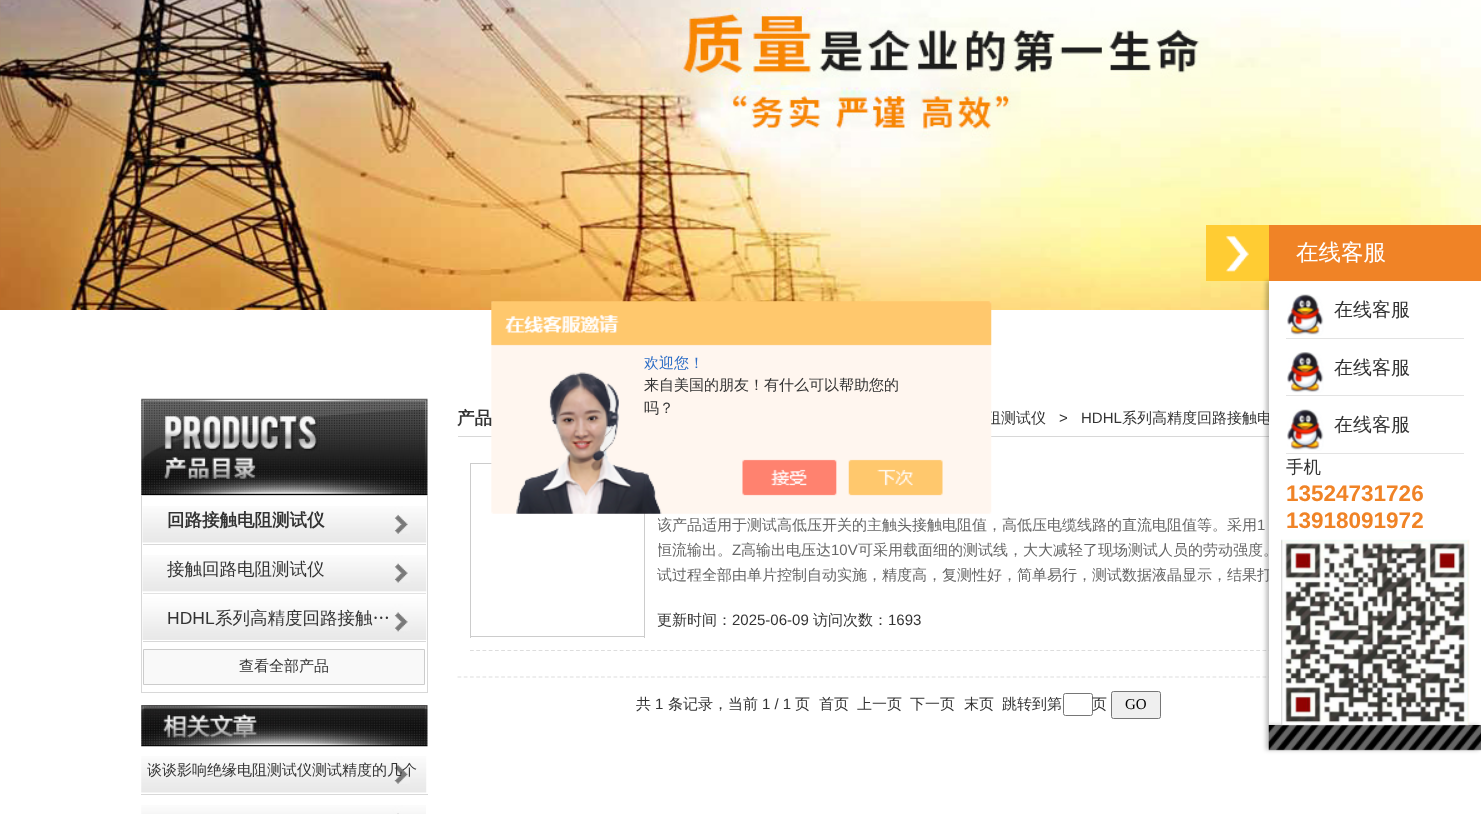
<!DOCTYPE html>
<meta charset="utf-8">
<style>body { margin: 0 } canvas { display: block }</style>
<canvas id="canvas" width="1481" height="814"></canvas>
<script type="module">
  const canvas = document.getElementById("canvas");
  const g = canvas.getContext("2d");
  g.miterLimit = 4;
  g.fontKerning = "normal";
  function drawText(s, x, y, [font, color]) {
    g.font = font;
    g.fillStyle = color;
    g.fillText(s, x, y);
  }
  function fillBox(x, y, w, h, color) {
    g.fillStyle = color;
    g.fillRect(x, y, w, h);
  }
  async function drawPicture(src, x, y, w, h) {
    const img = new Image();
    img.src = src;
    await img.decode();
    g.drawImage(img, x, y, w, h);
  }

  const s1 = ["500 15px WenQuanYi Zen Hei", "#333333"];
  const s2 = ["500 15px WenQuanYi Zen Hei", "#2E6EC6"];
  const s3 = ["500 22.5px WenQuanYi Zen Hei", "#FFFFFF"];
  const s4 = ["500 15px WenQuanYi Zen Hei", "#666666"];
  const s5 = ["500 19px WenQuanYi Zen Hei", "#333333"];
  const s6 = ["500 17.5px WenQuanYi Zen Hei", "#333333"];
  const s7 = ["bold 22.5px Liberation Sans", "#F08326"];
  const s8 = ["bold 17.5px WenQuanYi Zen Hei", "#333333"];
  const s9 = ["17.5px Liberation Sans", "#333333"];
  const s10 = ["15px Liberation Sans", "#333333"];
  const s11 = ["15px Liberation Sans", "#666666"];
  const s12 = ["15px Liberation Serif", "#000000"];

  fillBox(0, 0, 1481, 814, "#FFFFFF");
  await drawPicture("pic1.png", 0, 0, 1481, 310);
  fillBox(458, 436, 811, 1, "#D8D8D8");
  drawText("阻测试仪", 986, 423, s1);
  fillBox(470, 463, 22, 1, "#CCCCCC");
  fillBox(644, 513, 1, 125, "#CCCCCC");
  await drawPicture("pic2.png", 491, 301, 501, 213);
  drawText("欢迎您！", 644, 368, s2);
  drawText("来自美国的朋友！有什么可以帮助您的", 644, 390, s1);
  drawText("吗？", 644, 413, s1);
  fillBox(1206, 225, 63, 56, "#FFCC33");
  await drawPicture("pic3.png", 1226, 236, 23, 36);
  g.beginPath();
  g.moveTo(470, 650.5);
  g.lineTo(1329, 650.5);
  g.strokeStyle = "#DDDDDD";
  g.lineWidth = 1.2;
  g.setLineDash([3.75, 2.49]);
  g.stroke();
  g.beginPath();
  g.moveTo(457.5, 677);
  g.lineTo(1341, 677);
  g.stroke();
  g.fillStyle = "rgba(0, 0, 0, 0.25)";
  g.filter = "blur(2px)";
  g.beginPath();
  g.rect(1266, 281, 213, 444);
  g.fill();
  g.filter = "none";
  fillBox(1269, 225, 212, 56, "#F08326");
  drawText("在线客服", 1296, 260, s3);
  drawText("系列高精度回路接触电", 1122, 423, s1);
  drawText("试过程全部由单片控制自动实施，精度高，复测性好，简单易行，测试数据液晶显示，结果打", 657, 580, s4);
  fillBox(1269, 281, 212, 444, "#FFFFFF");
  fillBox(1286, 338, 178, 1, "#E3E3E3");
  await drawPicture("pic4.png", 1287, 294, 37, 42);
  drawText("在线客服", 1334, 316, s5);
  fillBox(1286, 395, 178, 1, "#E3E3E3");
  await drawPicture("pic5.png", 1287, 352, 37, 41);
  drawText("在线客服", 1334, 374, s5);
  fillBox(1286, 453, 178, 1, "#E3E3E3");
  await drawPicture("pic4.png", 1287, 409, 37, 42);
  drawText("在线客服", 1334, 431, s5);
  drawText("手机", 1286, 473, s6);
  drawText("13524731726", 1286, 501, s7);
  drawText("13918091972", 1286, 528, s7);
  g.fillStyle = "rgba(0, 0, 0, 0.25)";
  g.filter = "blur(2px)";
  g.beginPath();
  g.rect(1266, 725, 213, 25);
  g.fill();
  g.filter = "none";
  await drawPicture("pic7.png", 1268, 725, 213, 26);
  await drawPicture("pic6.png", 1281, 539, 189, 187);
  await drawPicture("pic8.png", 141, 398, 287, 97);
  g.strokeStyle = "#D8D8D8";
  g.lineWidth = 1;
  g.setLineDash([]);
  g.strokeRect(141.5, 495.5, 286, 197);
  await drawPicture("pic9.png", 142, 506, 285, 37);
  fillBox(143, 544, 283, 1, "#D8D8D8");
  drawText("回路接触电阻测试仪", 167, 526, s8);
  await drawPicture("pic10.png", 142, 555, 285, 37);
  fillBox(143, 593, 283, 1, "#D8D8D8");
  drawText("接触回路电阻测试仪", 167, 575, s6);
  await drawPicture("pic11.png", 142, 593, 285, 47);
  fillBox(143, 641, 283, 1, "#D8D8D8");
  drawText("HDHL", 167, 624, s9);
  drawText("系列高精度回路接触…", 215, 624, s6);
  g.fillStyle = "#F9F9F9";
  g.beginPath();
  g.rect(143.5, 649.5, 281, 35);
  g.fill();
  g.strokeStyle = "#CCCCCC";
  g.stroke();
  drawText("查看全部产品", 239, 671, s1);
  await drawPicture("pic12.png", 141, 705, 287, 42);
  await drawPicture("pic13.png", 141, 756, 286, 37);
  fillBox(141, 794, 287, 1, "#D8D8D8");
  drawText("谈谈影响绝缘电阻测试仪测试精度的几个", 147, 775, s1);
  await drawPicture("pic14.png", 141, 805, 285, 9);
  drawText("产品", 457, 424, s8);
  drawText(">", 1059, 423, s10);
  drawText("HDHL", 1081, 423, s10);
  fillBox(470, 636, 175, 1, "#CCCCCC");
  fillBox(470, 463, 1, 175, "#CCCCCC");
  g.save();
  g.beginPath();
  g.rect(658, 513, 650, 93);
  g.clip();
  drawText("该产品适用于测试高低压开关的主触头接触电阻值，高低压电缆线路的直流电阻值等。采用", 657, 530, s4);
  g.restore();
  drawText("1", 1257, 530, s11);
  g.save();
  g.beginPath();
  g.rect(658, 513, 650, 93);
  g.clip();
  drawText("恒流输出。", 657, 555, s4);
  g.restore();
  drawText("Z", 732, 555, s11);
  drawText("高输出电压达", 741, 555, s4);
  drawText("10V", 831, 555, s11);
  drawText("可采用载面细的测试线，大大减轻了现场测试人员的劳动强度。", 858, 555, s4);
  drawText("更新时间：", 657, 625, s1);
  drawText("2025-06-09", 732, 625, s10);
  drawText("访问次数：", 813, 625, s1);
  drawText("1693", 888, 625, s10);
  drawText("共", 636, 709, s1);
  drawText("1", 655, 709, s10);
  drawText("条记录，当前", 668, 709, s1);
  drawText("1 / 1", 762, 709, s10);
  drawText("页", 795, 709, s1);
  drawText("首页", 819, 709, s1);
  drawText("上一页", 857, 709, s1);
  drawText("下一页", 910, 709, s1);
  drawText("末页", 964, 709, s1);
  drawText("跳转到第", 1002, 709, s1);
  g.beginPath();
  g.roundRect(1063.5, 693.5, 29, 22, 2);
  g.strokeStyle = "#767676";
  g.stroke();
  drawText("页", 1092, 709, s1);
  g.fillStyle = "#EFEFEF";
  g.beginPath();
  g.roundRect(1111.5, 691.5, 49, 27, 2);
  g.fill();
  g.stroke();
  drawText("GO", 1125, 709, s12);
</script>
